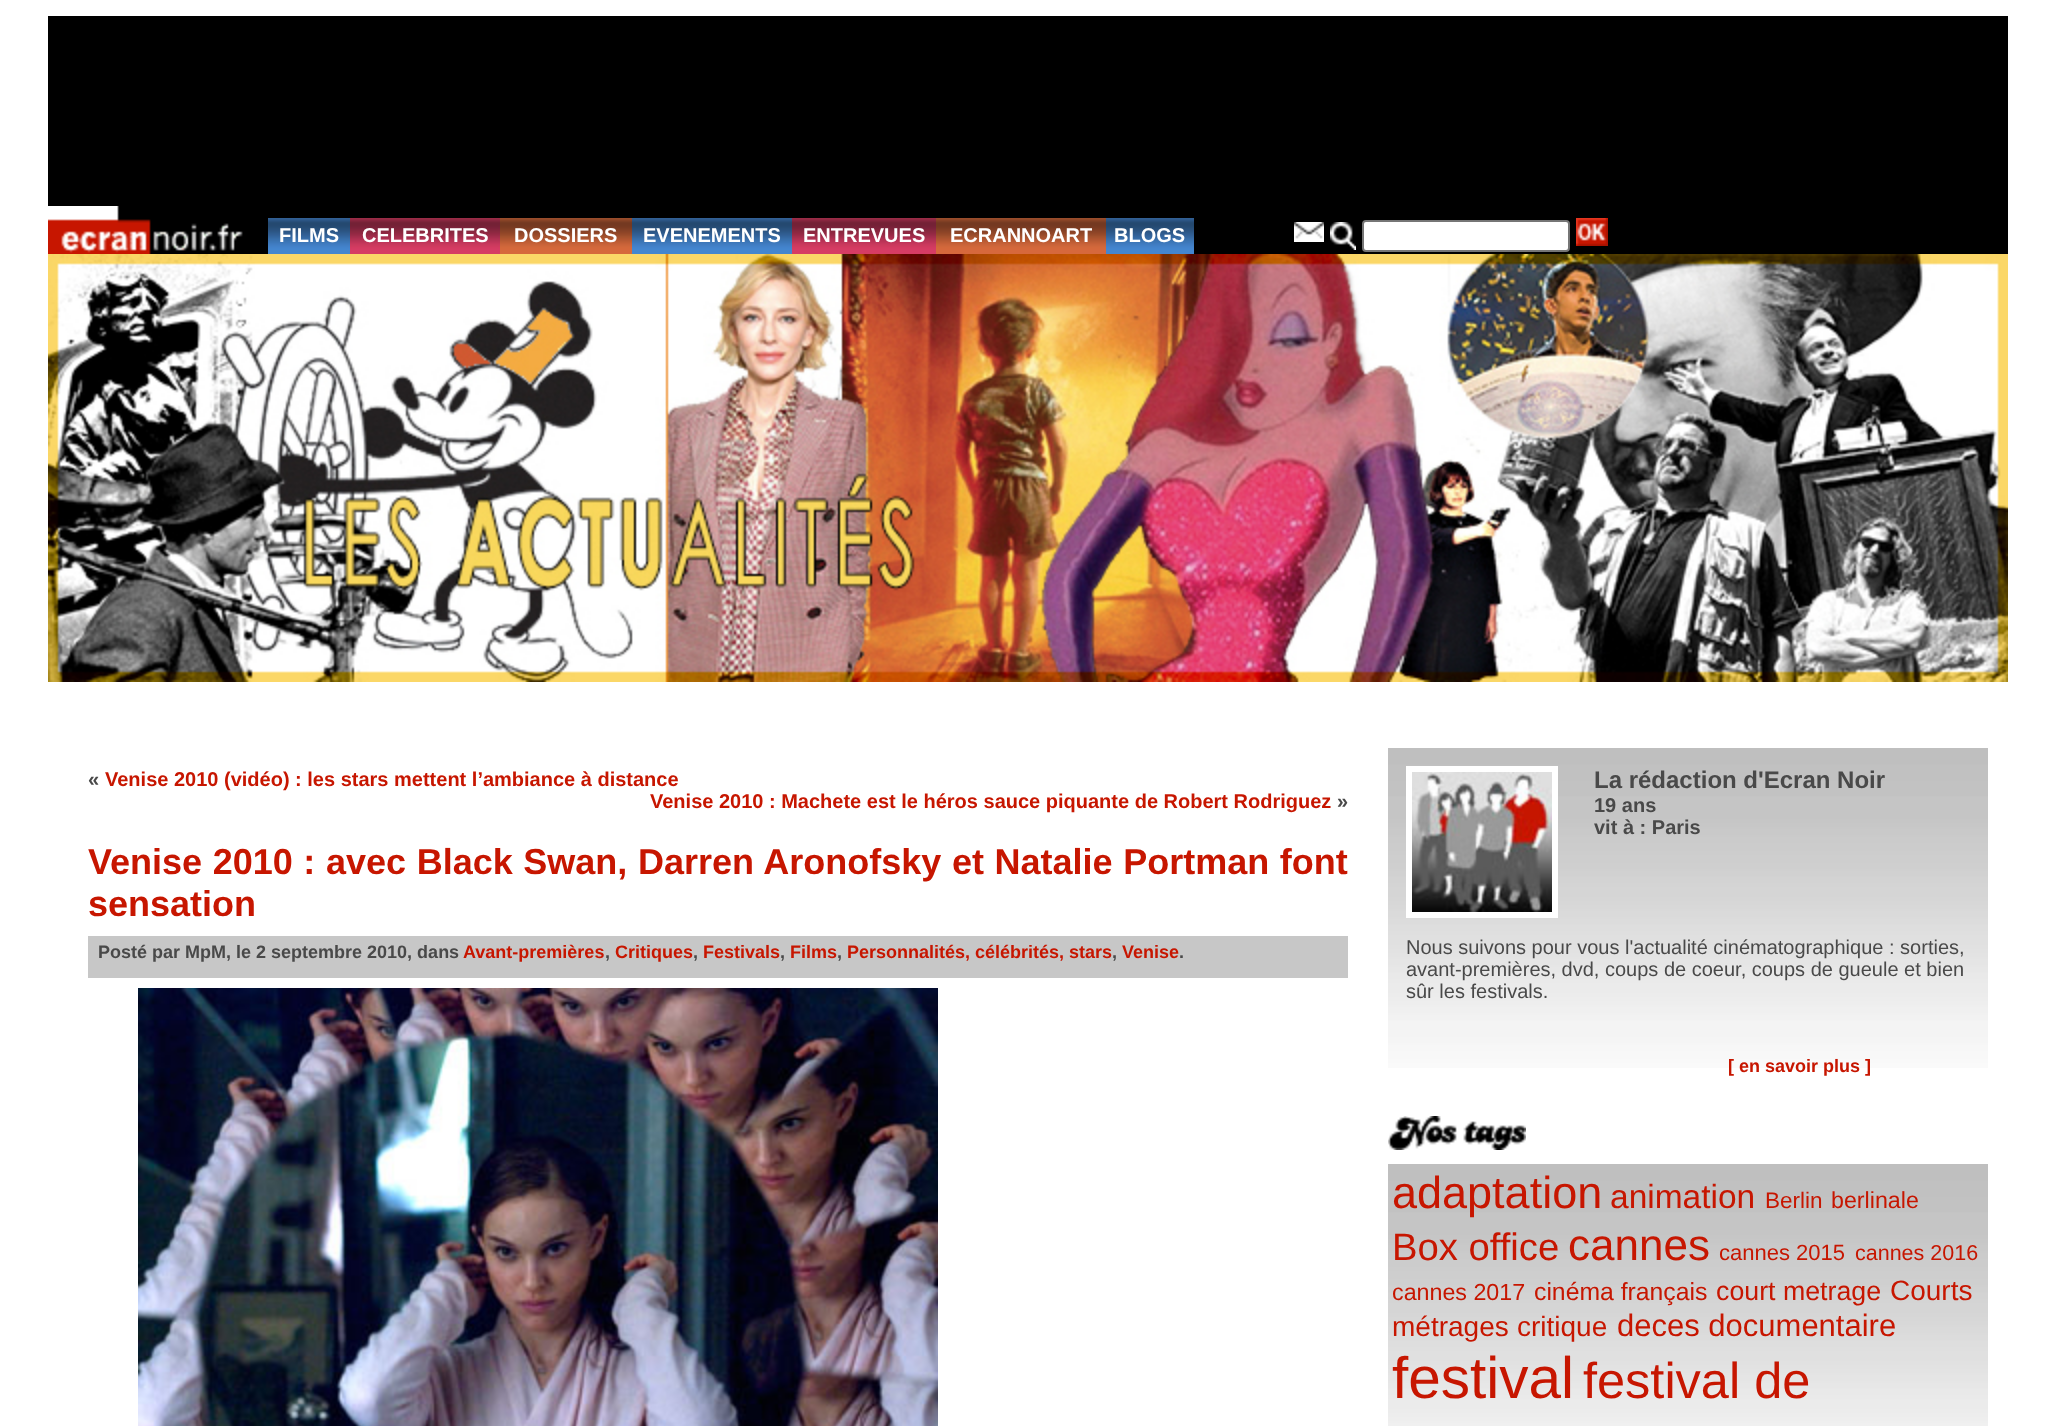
<!DOCTYPE html>
<meta charset="utf-8">
<style>body { margin: 0 } canvas { display: block }</style>
<canvas id="canvas" width="2056" height="1426"></canvas>
<script type="module">
  const canvas = document.getElementById("canvas");
  const g = canvas.getContext("2d");
  g.miterLimit = 4;
  g.fontKerning = "normal";
  function drawText(s, x, y, [font, color]) {
    g.font = font;
    g.fillStyle = color;
    g.fillText(s, x, y);
  }
  function fillBox(x, y, w, h, color) {
    g.fillStyle = color;
    g.fillRect(x, y, w, h);
  }
  async function drawPicture(src, x, y, w, h) {
    const img = new Image();
    img.src = src;
    await img.decode();
    g.drawImage(img, x, y, w, h);
  }

  const s1 = ["bold 20px Liberation Sans", "#FFFFFF"];
  const s2 = ["bold 20px Liberation Sans", "#494949"];
  const s3 = ["bold 20px Liberation Sans", "#C71600"];
  const s4 = ["bold 36px Liberation Sans", "#C71600"];
  const s5 = ["bold 18px Liberation Sans", "#494949"];
  const s6 = ["bold 18px Liberation Sans", "#C71600"];
  const s7 = ["bold 24px Liberation Sans", "#494949"];
  const s8 = ["20px Liberation Sans", "#494949"];
  const s9 = ["45px Liberation Sans", "#C71600"];
  const s10 = ["33.5px Liberation Sans", "#C71600"];
  const s11 = ["22.5px Liberation Sans", "#C71600"];
  const s12 = ["23.25px Liberation Sans", "#C71600"];
  const s13 = ["38.25px Liberation Sans", "#C71600"];
  const s14 = ["44px Liberation Sans", "#C71600"];
  const s15 = ["22px Liberation Sans", "#C71600"];
  const s16 = ["21.5px Liberation Sans", "#C71600"];
  const s17 = ["24.75px Liberation Sans", "#C71600"];
  const s18 = ["26.75px Liberation Sans", "#C71600"];
  const s19 = ["28px Liberation Sans", "#C71600"];
  const s20 = ["31px Liberation Sans", "#C71600"];
  const s21 = ["58.5px Liberation Sans", "#C71600"];
  const s22 = ["50.5px Liberation Sans", "#C71600"];

  fillBox(0, 0, 2056, 1426, "#FFFFFF");
  fillBox(48, 16, 1960, 238, "#000000");
  await drawPicture("pic1.png", 48, 206, 195, 48);
  await drawPicture("pic2.png", 268, 218, 82, 36);
  drawText("FILMS", 279, 242, s1);
  await drawPicture("pic3.png", 350, 218, 150, 36);
  drawText("CELEBRITES", 362, 242, s1);
  await drawPicture("pic4.png", 500, 218, 132, 36);
  drawText("DOSSIERS", 514, 242, s1);
  await drawPicture("pic5.png", 632, 218, 160, 36);
  drawText("EVENEMENTS", 643, 242, s1);
  await drawPicture("pic6.png", 792, 218, 144, 36);
  drawText("ENTREVUES", 803, 242, s1);
  await drawPicture("pic7.png", 936, 218, 170, 36);
  drawText("ECRANNOART", 950, 242, s1);
  await drawPicture("pic8.png", 1106, 218, 88, 36);
  drawText("BLOGS", 1114, 242, s1);
  await drawPicture("pic9.png", 1294, 222, 30, 20);
  await drawPicture("pic10.png", 1330, 222, 26, 28);
  g.beginPath();
  g.roundRect(1363, 221, 206, 30, 3);
  g.fill();
  g.strokeStyle = "#767676";
  g.lineWidth = 2;
  g.stroke();
  await drawPicture("pic11.png", 1576, 218, 32, 28);
  await drawPicture("pic12.png", 48, 254, 1960, 428);
  drawText("«", 88, 786, s2);
  drawText("Venise 2010 (vidéo) : les stars mettent l’ambiance à distance", 105, 786, s3);
  drawText("Venise 2010 : Machete est le héros sauce piquante de Robert Rodriguez", 650, 808, s3);
  drawText("»", 1337, 808, s2);
  g.wordSpacing = "0.6px";
  drawText("Venise 2010 : avec Black Swan, Darren Aronofsky et Natalie Portman font", 88, 874, s4);
  g.wordSpacing = "0px";
  drawText("sensation", 88, 916, s4);
  fillBox(88, 936, 1260, 42, "#C7C7C7");
  drawText("Posté par MpM, le 2 septembre 2010, dans", 98, 958, s5);
  drawText("Avant-premières", 463, 958, s6);
  drawText(",", 605, 958, s5);
  drawText("Critiques", 615, 958, s6);
  drawText(",", 693, 958, s5);
  drawText("Festivals", 703, 958, s6);
  drawText(",", 780, 958, s5);
  drawText("Films", 790, 958, s6);
  drawText(",", 837, 958, s5);
  drawText("Personnalités, célébrités, stars", 847, 958, s6);
  drawText(",", 1112, 958, s5);
  drawText("Venise", 1122, 958, s6);
  drawText(".", 1179, 958, s5);
  await drawPicture("pic13.png", 138, 988, 800, 438);
  await drawPicture("pic14.png", 1388, 748, 600, 320);
  g.strokeStyle = "#FFFFFF";
  g.lineWidth = 6;
  g.strokeRect(1409, 769, 146, 146);
  await drawPicture("pic15.png", 1412, 772, 140, 140);
  drawText("La rédaction d'Ecran Noir", 1594, 788, s7);
  drawText("19 ans", 1594, 812, s2);
  drawText("vit à : Paris", 1594, 834, s2);
  drawText("Nous suivons pour vous l'actualité cinématographique : sorties,", 1406, 954, s8);
  drawText("avant-premières, dvd, coups de coeur, coups de gueule et bien", 1406, 976, s8);
  drawText("sûr les festivals.", 1406, 998, s8);
  drawText("[ en savoir plus ]", 1728, 1072, s6);
  await drawPicture("pic16.png", 1388, 1116, 138, 34);
  await drawPicture("pic17.png", 1388, 1164, 600, 262);
  drawText("adaptation", 1392, 1208, s9);
  drawText("animation", 1610, 1208, s10);
  drawText("Berlin", 1765, 1208, s11);
  drawText("berlinale", 1831, 1208, s12);
  drawText("Box office", 1392, 1260, s13);
  drawText("cannes", 1568, 1260, s14);
  drawText("cannes 2015", 1719, 1260, s15);
  drawText("cannes 2016", 1855, 1260, s16);
  drawText("cannes 2017", 1392, 1300, s12);
  drawText("cinéma français", 1534, 1300, s17);
  drawText("court metrage", 1716, 1300, s18);
  drawText("Courts", 1890, 1300, s19);
  drawText("métrages", 1392, 1336, s19);
  drawText("critique", 1517, 1336, s19);
  drawText("deces documentaire", 1617, 1336, s20);
  drawText("festival", 1392, 1398, s21);
  drawText("festival de", 1583, 1398, s22);
</script>
